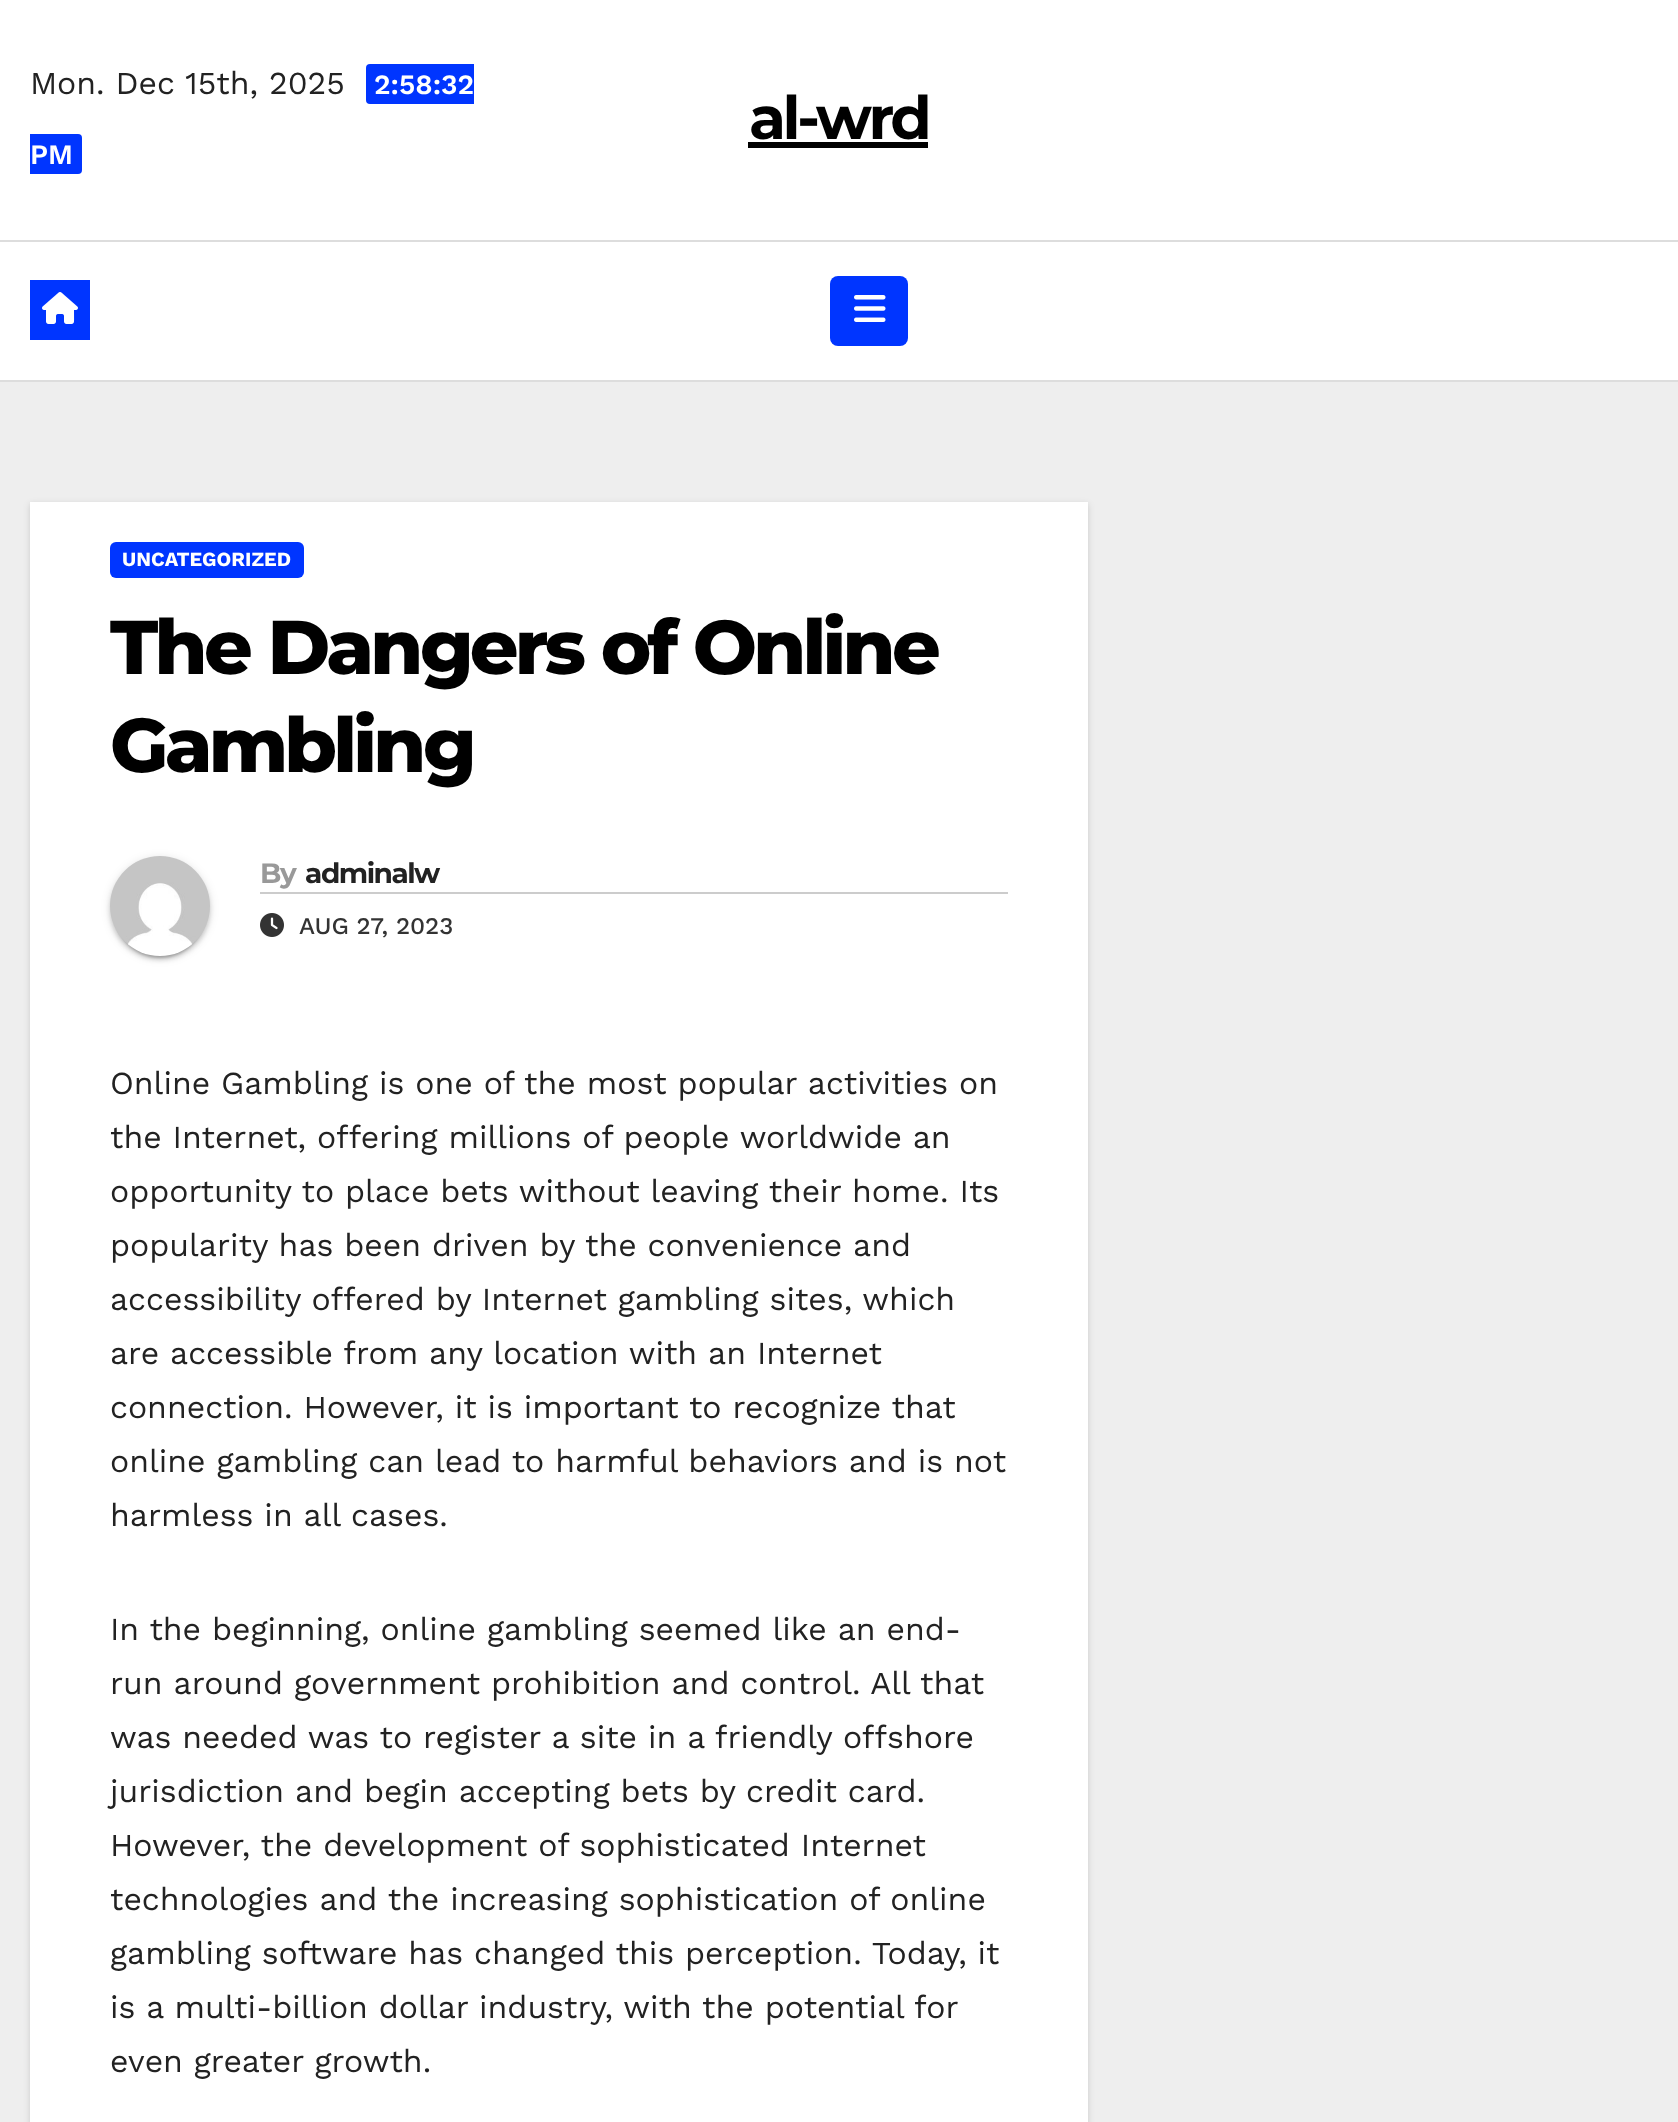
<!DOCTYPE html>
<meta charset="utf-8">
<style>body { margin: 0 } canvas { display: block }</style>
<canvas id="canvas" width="1678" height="2122"></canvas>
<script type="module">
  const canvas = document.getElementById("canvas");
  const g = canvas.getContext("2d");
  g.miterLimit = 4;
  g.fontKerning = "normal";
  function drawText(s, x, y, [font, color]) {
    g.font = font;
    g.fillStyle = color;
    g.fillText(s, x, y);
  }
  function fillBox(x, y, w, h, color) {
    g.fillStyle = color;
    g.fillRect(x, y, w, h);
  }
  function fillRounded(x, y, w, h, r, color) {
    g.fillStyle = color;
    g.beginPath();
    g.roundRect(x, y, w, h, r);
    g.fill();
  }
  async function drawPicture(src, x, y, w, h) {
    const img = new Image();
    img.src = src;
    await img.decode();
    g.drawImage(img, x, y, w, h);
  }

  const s1 = ["32px Work Sans", "#222222"];
  const s2 = ["600 28px Work Sans", "#FFFFFF"];
  const s3 = ["bold 60px Montserrat", "#000000"];
  const s4 = ["bold 20px Work Sans", "#FFFFFF"];
  const s5 = ["800 76px Montserrat", "#000000"];
  const s6 = ["bold 28px Montserrat", "#999999"];
  const s7 = ["bold 28px Montserrat", "#222222"];
  const s8 = ["500 24px Work Sans", "#333333"];

  fillBox(0, 0, 1678, 2122, "#EEEEEE");
  fillBox(0, 0, 1678, 240, "#FFFFFF");
  drawText("Mon. Dec 15th, 2025", 30, 94, s1);
  g.fillStyle = "#0035FF";
  g.beginPath();
  g.roundRect(366, 64, 108, 40, [4, 0, 0, 4]);
  g.fill();
  drawText("2:58:32", 374, 94, s2);
  g.fillStyle = "#0035FF";
  g.beginPath();
  g.roundRect(30, 134, 52, 40, [0, 4, 4, 0]);
  g.fill();
  drawText("PM", 30, 164, s2);
  g.letterSpacing = "-3.5px";
  drawText("al-wrd", 749, 139, s3);
  fillBox(748, 142, 180, 6, "#000000");
  fillBox(0, 242, 1678, 138, "#FFFFFF");
  fillBox(0, 240, 1678, 2, "#DDDDDD");
  fillBox(0, 380, 1678, 2, "#DDDDDD");
  fillBox(30, 280, 60, 60, "#0035FF");
  await drawPicture("pic1.png", 42, 292, 36, 32);
  fillRounded(830, 276, 78, 70, 8, "#0035FF");
  await drawPicture("pic2.png", 854, 295, 32, 27);
  g.fillStyle = "rgba(0, 0, 0, 0.15)";
  g.filter = "blur(3px)";
  g.beginPath();
  g.rect(30, 504, 1058, 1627);
  g.fill();
  g.filter = "none";
  fillBox(30, 502, 1058, 1620, "#FFFFFF");
  fillRounded(110, 542, 194, 36, 6, "#0035FF");
  g.letterSpacing = "0px";
  drawText("UNCATEGORIZED", 122, 566, s4);
  g.letterSpacing = "-3.8px";
  drawText("The Dangers of Online", 110, 674, s5);
  drawText("Gambling", 110, 772, s5);
  g.fillStyle = "rgba(0, 0, 0, 0.12)";
  g.filter = "blur(5px)";
  g.beginPath();
  g.roundRect(110, 858, 100, 100, 50);
  g.fill();
  g.filter = "none";
  g.fillStyle = "rgba(0, 0, 0, 0.2)";
  g.filter = "blur(1px)";
  g.beginPath();
  g.roundRect(114, 866, 92, 92, 46);
  g.fill();
  g.filter = "none";
  g.fillStyle = "rgba(0, 0, 0, 0.14)";
  g.filter = "blur(2px)";
  g.beginPath();
  g.roundRect(110, 860, 100, 100, 50);
  g.fill();
  g.filter = "none";
  await drawPicture("pic3.png", 110, 856, 100, 100);
  fillBox(260, 892, 748, 2, "#CCCCCC");
  g.letterSpacing = "-1.5px";
  drawText("By", 260, 883, s6);
  drawText("adminalw", 305, 883, s7);
  await drawPicture("pic4.png", 260, 913, 24, 24);
  g.letterSpacing = "0px";
  drawText("AUG 27, 2023", 299, 934, s8);
  drawText("Online Gambling is one of the most popular activities on", 110, 1094, s1);
  drawText("the Internet, offering millions of people worldwide an", 110, 1148, s1);
  drawText("opportunity to place bets without leaving their home. Its", 110, 1202, s1);
  drawText("popularity has been driven by the convenience and", 110, 1256, s1);
  drawText("accessibility offered by Internet gambling sites, which", 110, 1310, s1);
  drawText("are accessible from any location with an Internet", 110, 1364, s1);
  drawText("connection. However, it is important to recognize that", 110, 1418, s1);
  drawText("online gambling can lead to harmful behaviors and is not", 110, 1472, s1);
  drawText("harmless in all cases.", 110, 1526, s1);
  drawText("In the beginning, online gambling seemed like an end-", 110, 1640, s1);
  drawText("run around government prohibition and control. All that", 110, 1694, s1);
  drawText("was needed was to register a site in a friendly offshore", 110, 1748, s1);
  drawText("jurisdiction and begin accepting bets by credit card.", 110, 1802, s1);
  drawText("However, the development of sophisticated Internet", 110, 1856, s1);
  drawText("technologies and the increasing sophistication of online", 110, 1910, s1);
  drawText("gambling software has changed this perception. Today, it", 110, 1964, s1);
  drawText("is a multi-billion dollar industry, with the potential for", 110, 2018, s1);
  drawText("even greater growth.", 110, 2072, s1);
</script>
